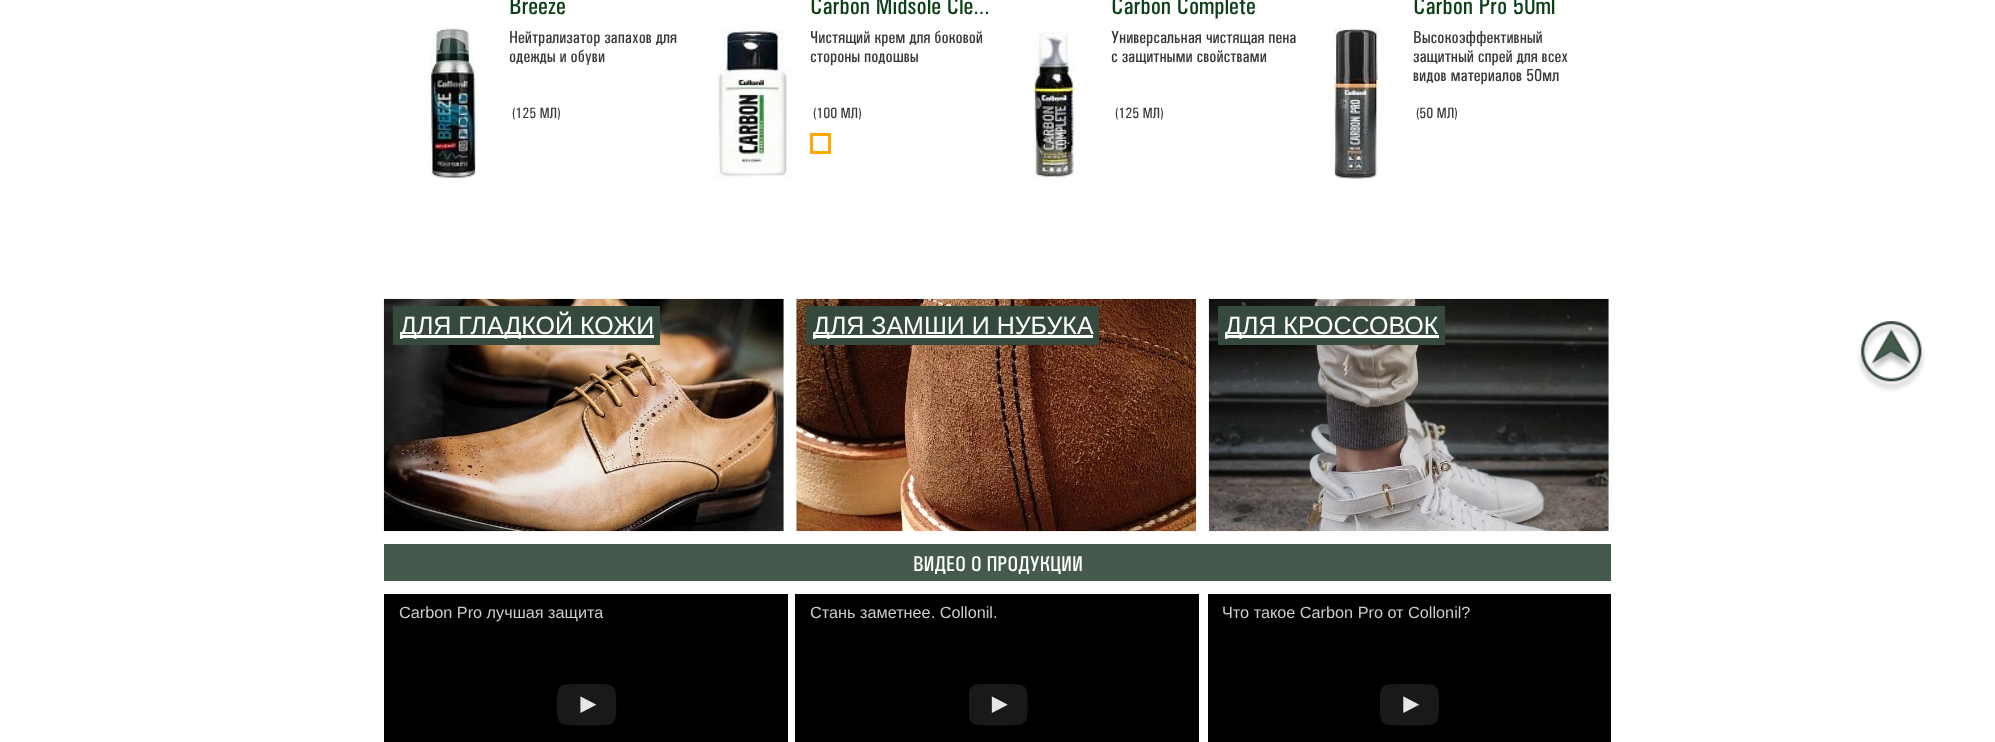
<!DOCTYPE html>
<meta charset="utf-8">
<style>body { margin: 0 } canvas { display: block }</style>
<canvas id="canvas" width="1995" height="742"></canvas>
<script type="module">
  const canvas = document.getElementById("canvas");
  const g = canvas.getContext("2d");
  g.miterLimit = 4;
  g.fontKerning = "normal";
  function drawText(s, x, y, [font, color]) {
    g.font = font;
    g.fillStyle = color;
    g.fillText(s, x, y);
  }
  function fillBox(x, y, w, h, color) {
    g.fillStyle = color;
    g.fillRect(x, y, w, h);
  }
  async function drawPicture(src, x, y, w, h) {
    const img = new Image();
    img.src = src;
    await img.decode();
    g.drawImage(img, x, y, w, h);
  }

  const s1 = ["500 25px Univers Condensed", "#0D4018"];
  const s2 = ["500 17.5px Univers Condensed", "#393938"];
  const s3 = ["500 15px Univers Condensed", "#393938"];
  const s4 = ["25px Liberation Sans", "#FFFFFF"];
  const s5 = ["500 21.25px Univers Condensed", "#FFFFFF"];
  const s6 = ["16.25px Liberation Sans", "#CCCCCC"];

  fillBox(0, 0, 1995, 742, "#FFFFFF");
  await drawPicture("pic1.png", 430, 28, 46, 151);
  drawText("Breeze", 509, 14, s1);
  drawText("Нейтрализатор запахов для", 509, 43, s2);
  drawText("одежды и обуви", 509, 62, s2);
  drawText("(125 МЛ)", 512, 118, s3);
  await drawPicture("pic2.png", 715, 29, 78, 150);
  drawText("Carbon Midsole Cle…", 810, 14, s1);
  drawText("Чистящий крем для боковой", 810, 43, s2);
  drawText("стороны подошвы", 810, 62, s2);
  drawText("(100 МЛ)", 813, 118, s3);
  g.strokeStyle = "#FFA800";
  g.lineWidth = 3;
  g.strokeRect(811.5, 134.5, 18, 18);
  await drawPicture("pic3.png", 1033, 31, 43, 148);
  drawText("Carbon Complete", 1111, 14, s1);
  drawText("Универсальная чистящая пена", 1111, 43, s2);
  drawText("с защитными свойствами", 1111, 62, s2);
  drawText("(125 МЛ)", 1115, 118, s3);
  await drawPicture("pic4.png", 1333, 28, 46, 151);
  drawText("Carbon Pro 50ml", 1413, 14, s1);
  drawText("Высокоэффективный", 1413, 43, s2);
  drawText("защитный спрей для всех", 1413, 62, s2);
  drawText("видов материалов 50мл", 1413, 81, s2);
  drawText("(50 МЛ)", 1416, 118, s3);
  await drawPicture("pic5.png", 383, 298, 401, 234);
  fillBox(393, 306, 267, 39, "#354A3D");
  fillBox(400, 335, 254, 3, "#FFFFFF");
  drawText("ДЛЯ ГЛАДКОЙ КОЖИ", 400, 334, s4);
  await drawPicture("pic6.png", 796, 298, 401, 234);
  fillBox(806, 306, 293, 39, "#354A3D");
  fillBox(813, 335, 280, 3, "#FFFFFF");
  drawText("ДЛЯ ЗАМШИ И НУБУКА", 813, 334, s4);
  await drawPicture("pic7.png", 1208, 298, 401, 234);
  fillBox(1218, 306, 227, 39, "#354A3D");
  fillBox(1225, 335, 214, 3, "#FFFFFF");
  drawText("ДЛЯ КРОССОВОК", 1225, 334, s4);
  fillBox(384, 544, 1227, 37, "#455A4D");
  drawText("ВИДЕО О ПРОДУКЦИИ", 913, 571, s5);
  fillBox(384, 594, 404, 148, "#000000");
  drawText("Carbon Pro лучшая защита", 399, 618, s6);
  await drawPicture("pic8.png", 557, 684, 60, 42);
  fillBox(795, 594, 404, 148, "#000000");
  drawText("Стань заметнее. Collonil.", 810, 618, s6);
  await drawPicture("pic9.png", 969, 684, 59, 42);
  fillBox(1208, 594, 403, 148, "#000000");
  drawText("Что такое Carbon Pro от Collonil?", 1222, 618, s6);
  await drawPicture("pic10.png", 1380, 684, 59, 42);
  await drawPicture("pic11.png", 1857, 321, 68, 71);
</script>
